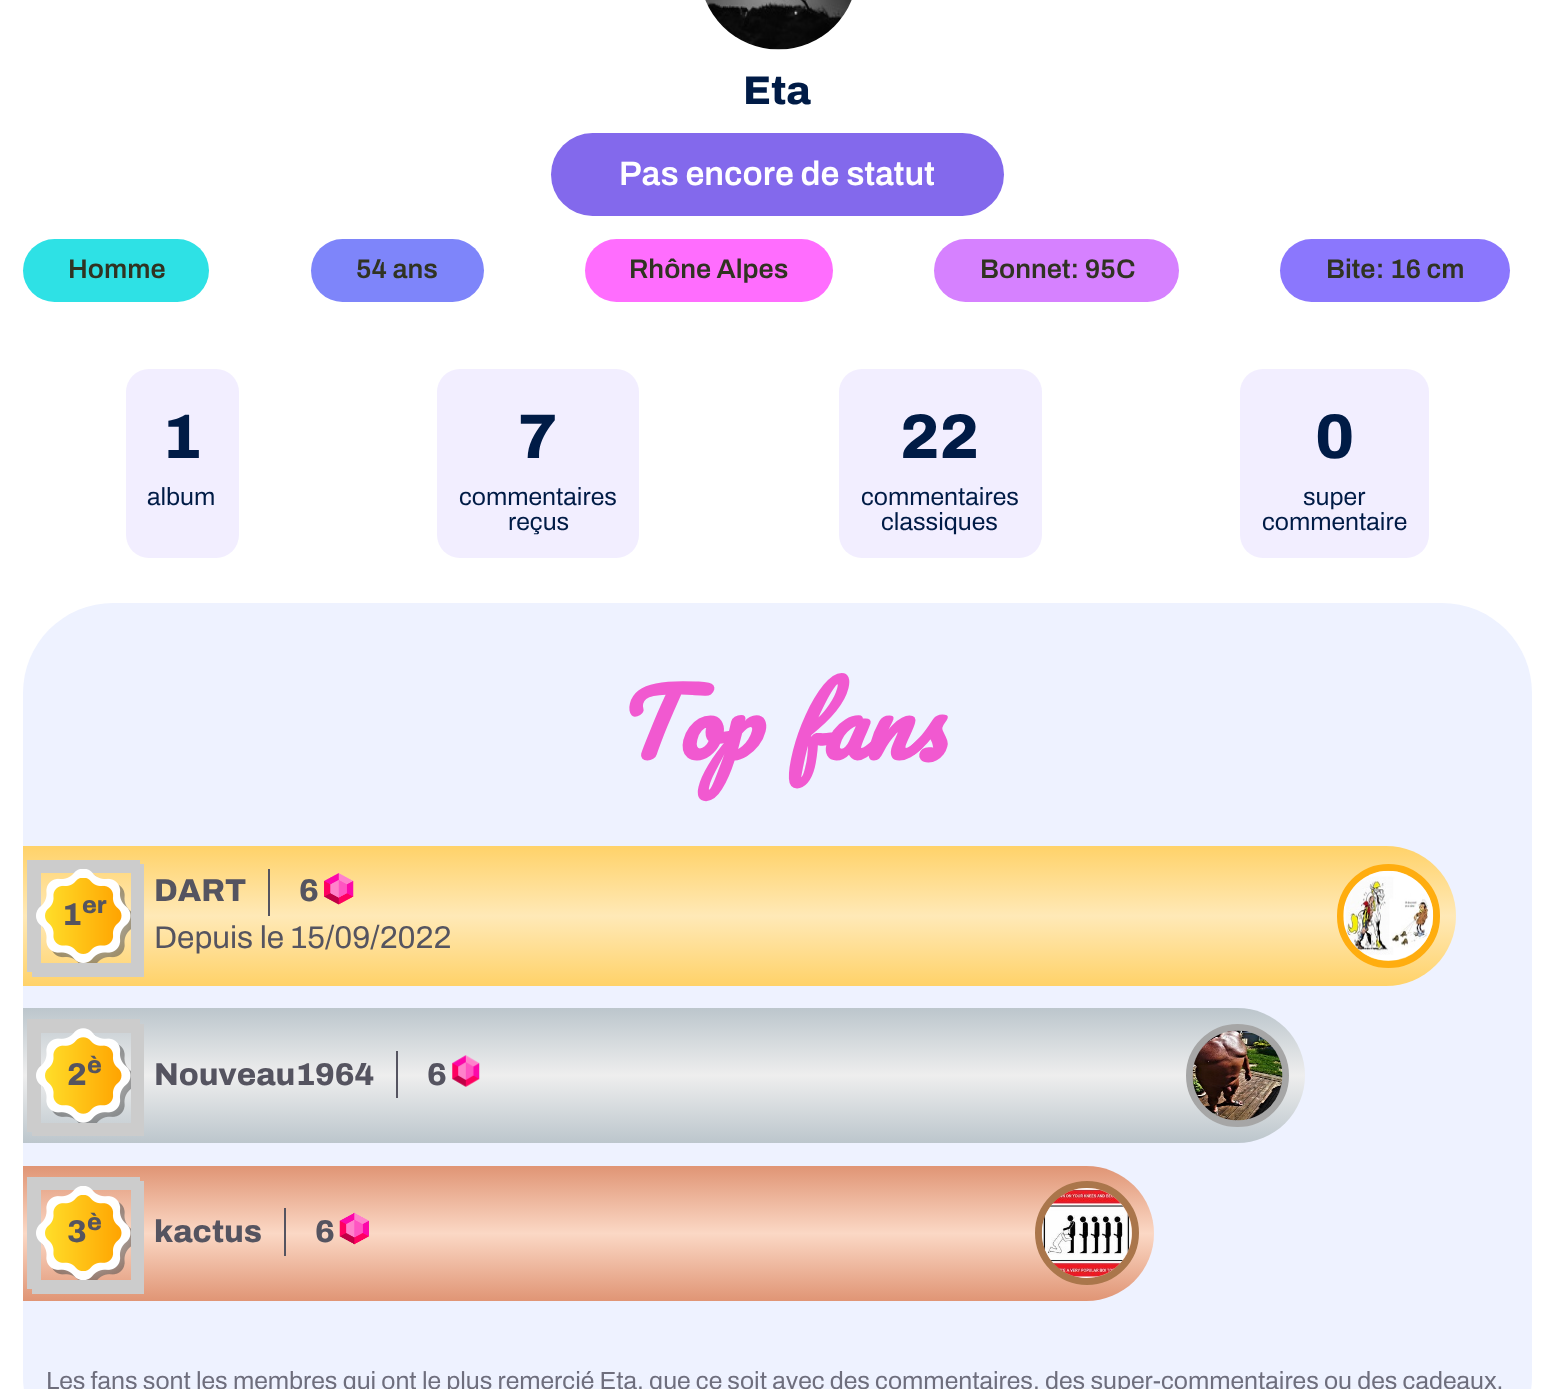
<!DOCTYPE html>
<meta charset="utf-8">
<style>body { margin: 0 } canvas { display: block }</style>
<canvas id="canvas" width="1554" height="1389"></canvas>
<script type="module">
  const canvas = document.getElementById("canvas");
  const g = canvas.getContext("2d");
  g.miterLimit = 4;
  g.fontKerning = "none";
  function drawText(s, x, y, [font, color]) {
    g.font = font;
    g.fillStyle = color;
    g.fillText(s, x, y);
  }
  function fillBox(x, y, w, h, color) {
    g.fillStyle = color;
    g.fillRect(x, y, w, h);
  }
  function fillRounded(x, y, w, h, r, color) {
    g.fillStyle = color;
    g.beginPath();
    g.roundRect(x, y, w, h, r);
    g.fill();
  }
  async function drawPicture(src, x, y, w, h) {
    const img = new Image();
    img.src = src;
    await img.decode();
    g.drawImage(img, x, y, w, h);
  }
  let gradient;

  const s1 = ["800 40px Archivo", "#001B46"];
  const s2 = ["600 33.75px Archivo", "#FFFFFF"];
  const s3 = ["600 27px Archivo", "#303322"];
  const s4 = ["800 63px Archivo", "#001B46"];
  const s5 = ["24.75px Archivo", "#001B46"];
  const s6 = ["italic bold 90px Pacifico", "#F159D0"];
  const s7 = ["800 31.5px Archivo", "#555460"];
  const s8 = ["800 24px Archivo", "#555460"];
  const s9 = ["31.5px Archivo", "#555460"];
  const s10 = ["24.75px Archivo", "#6E6E7D"];

  fillBox(0, 0, 1554, 1389, "#FFFFFF");
  await drawPicture("pic1.png", 705, 0, 147, 50);
  drawText("Eta", 743, 104, s1);
  fillRounded(551, 133, 453, 83, 41.5, "#8369EC");
  drawText("Pas encore de statut", 619, 185, s2);
  fillRounded(23, 239, 186, 63, 31.5, "#2EE1E5");
  drawText("Homme", 68, 278, s3);
  fillRounded(311, 239, 173, 63, 31.5, "#7E85FA");
  drawText("54 ans", 356, 278, s3);
  fillRounded(585, 239, 248, 63, 31.5, "#FF6DFE");
  drawText("Rhône Alpes", 629, 278, s3);
  fillRounded(934, 239, 245, 63, 31.5, "#D681FF");
  drawText("Bonnet: 95C", 980, 278, s3);
  fillRounded(1280, 239, 230, 63, 31.5, "#8B77FD");
  drawText("Bite: 16 cm", 1326, 278, s3);
  fillRounded(126, 369, 113, 189, 23, "#F2EEFF");
  drawText("1", 162, 458, s4);
  drawText("album", 147, 505, s5);
  fillRounded(437, 369, 202, 189, 23, "#F2EEFF");
  drawText("7", 518, 458, s4);
  drawText("commentaires", 459, 505, s5);
  drawText("reçus", 508, 530, s5);
  fillRounded(839, 369, 203, 189, 23, "#F2EEFF");
  drawText("22", 900, 458, s4);
  drawText("commentaires", 861, 505, s5);
  drawText("classiques", 881, 530, s5);
  fillRounded(1240, 369, 189, 189, 23, "#F2EEFF");
  drawText("0", 1315, 458, s4);
  drawText("super", 1303, 505, s5);
  drawText("commentaire", 1262, 530, s5);
  fillRounded(23, 603, 1509, 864, 90, "#EEF2FF");
  g.wordSpacing = "5px";
  drawText("Top fans", 613, 760, s6);
  gradient = g.createLinearGradient(739, 846, 739, 986);
  gradient.addColorStop(0, "#FFD269");
  gradient.addColorStop(0.5, "#FFE9B7");
  gradient.addColorStop(1, "#FFD269");
  g.fillStyle = gradient;
  g.beginPath();
  g.roundRect(23, 846, 1433, 140, [0, 70, 70, 0]);
  g.fill();
  g.strokeStyle = "#CCCCCC";
  g.lineWidth = 9;
  g.strokeRect(36.5, 868.5, 103, 104);
  await drawPicture("pic3.png", 41, 874, 90, 89);
  g.strokeRect(31.5, 864.5, 104, 103);
  await drawPicture("pic2.png", 36, 869, 95, 94);
  await drawPicture("pic4.png", 45, 878, 77, 76);
  g.wordSpacing = "0px";
  drawText("1", 62, 925, s7);
  drawText("er", 82, 913, s8);
  fillBox(268, 869, 2, 47, "#555460");
  drawText("DART", 154, 901, s7);
  drawText("6", 299, 901, s7);
  await drawPicture("pic5.png", 324, 873, 30, 32);
  drawText("Depuis le 15/09/2022", 154, 948, s9);
  g.beginPath();
  g.roundRect(1340.5, 867.5, 96, 97, 48);
  g.strokeStyle = "#FFAD0F";
  g.lineWidth = 7;
  g.stroke();
  await drawPicture("pic6.png", 1343, 870, 91, 91);
  gradient = g.createLinearGradient(664, 1008, 664, 1143);
  gradient.addColorStop(0, "#BCC6CC");
  gradient.addColorStop(0.5, "#EEEEEE");
  gradient.addColorStop(1, "#BCC6CC");
  g.fillStyle = gradient;
  g.beginPath();
  g.roundRect(23, 1008, 1282, 135, [0, 67.5, 67.5, 0]);
  g.fill();
  g.strokeStyle = "#CCCCCC";
  g.lineWidth = 9;
  g.strokeRect(36.5, 1028.5, 103, 103);
  await drawPicture("pic8.png", 41, 1033, 90, 90);
  g.strokeRect(31.5, 1023.5, 104, 104);
  await drawPicture("pic7.png", 36, 1028, 95, 95);
  await drawPicture("pic9.png", 45, 1037, 77, 77);
  drawText("2", 67, 1085, s7);
  drawText("è", 87, 1073, s8);
  fillBox(396, 1051, 2, 47, "#555460");
  drawText("Nouveau1964", 154, 1085, s7);
  drawText("6", 427, 1085, s7);
  await drawPicture("pic10.png", 452, 1055, 28, 32);
  g.beginPath();
  g.arc(1237.5, 1075.5, 48, 0, Math.PI * 2);
  g.strokeStyle = "#A6A6A6";
  g.lineWidth = 7;
  g.stroke();
  await drawPicture("pic11.png", 1192, 1030, 91, 91);
  gradient = g.createLinearGradient(588, 1166, 588, 1301);
  gradient.addColorStop(0, "#E09575");
  gradient.addColorStop(0.5, "#FBD8C5");
  gradient.addColorStop(1, "#E09575");
  g.fillStyle = gradient;
  g.beginPath();
  g.roundRect(23, 1166, 1131, 135, [0, 67.5, 67.5, 0]);
  g.fill();
  g.strokeStyle = "#CCCCCC";
  g.lineWidth = 9;
  g.strokeRect(36.5, 1185.5, 103, 104);
  await drawPicture("pic13.png", 41, 1191, 90, 89);
  g.strokeRect(31.5, 1181.5, 104, 103);
  await drawPicture("pic12.png", 36, 1186, 95, 94);
  await drawPicture("pic14.png", 45, 1195, 77, 76);
  drawText("3", 67, 1242, s7);
  drawText("è", 87, 1230, s8);
  fillBox(284, 1208, 2, 48, "#555460");
  drawText("kactus", 154, 1242, s7);
  drawText("6", 315, 1242, s7);
  await drawPicture("pic15.png", 339, 1212, 30, 33);
  g.beginPath();
  g.arc(1087, 1233, 48.5, 0, Math.PI * 2);
  g.strokeStyle = "#AA764B";
  g.lineWidth = 7;
  g.stroke();
  await drawPicture("pic16.png", 1041, 1188, 91, 90);
  drawText("Les fans sont les membres qui ont le plus remercié Eta, que ce soit avec des commentaires, des super-commentaires ou des cadeaux.", 46, 1389, s10);
</script>
